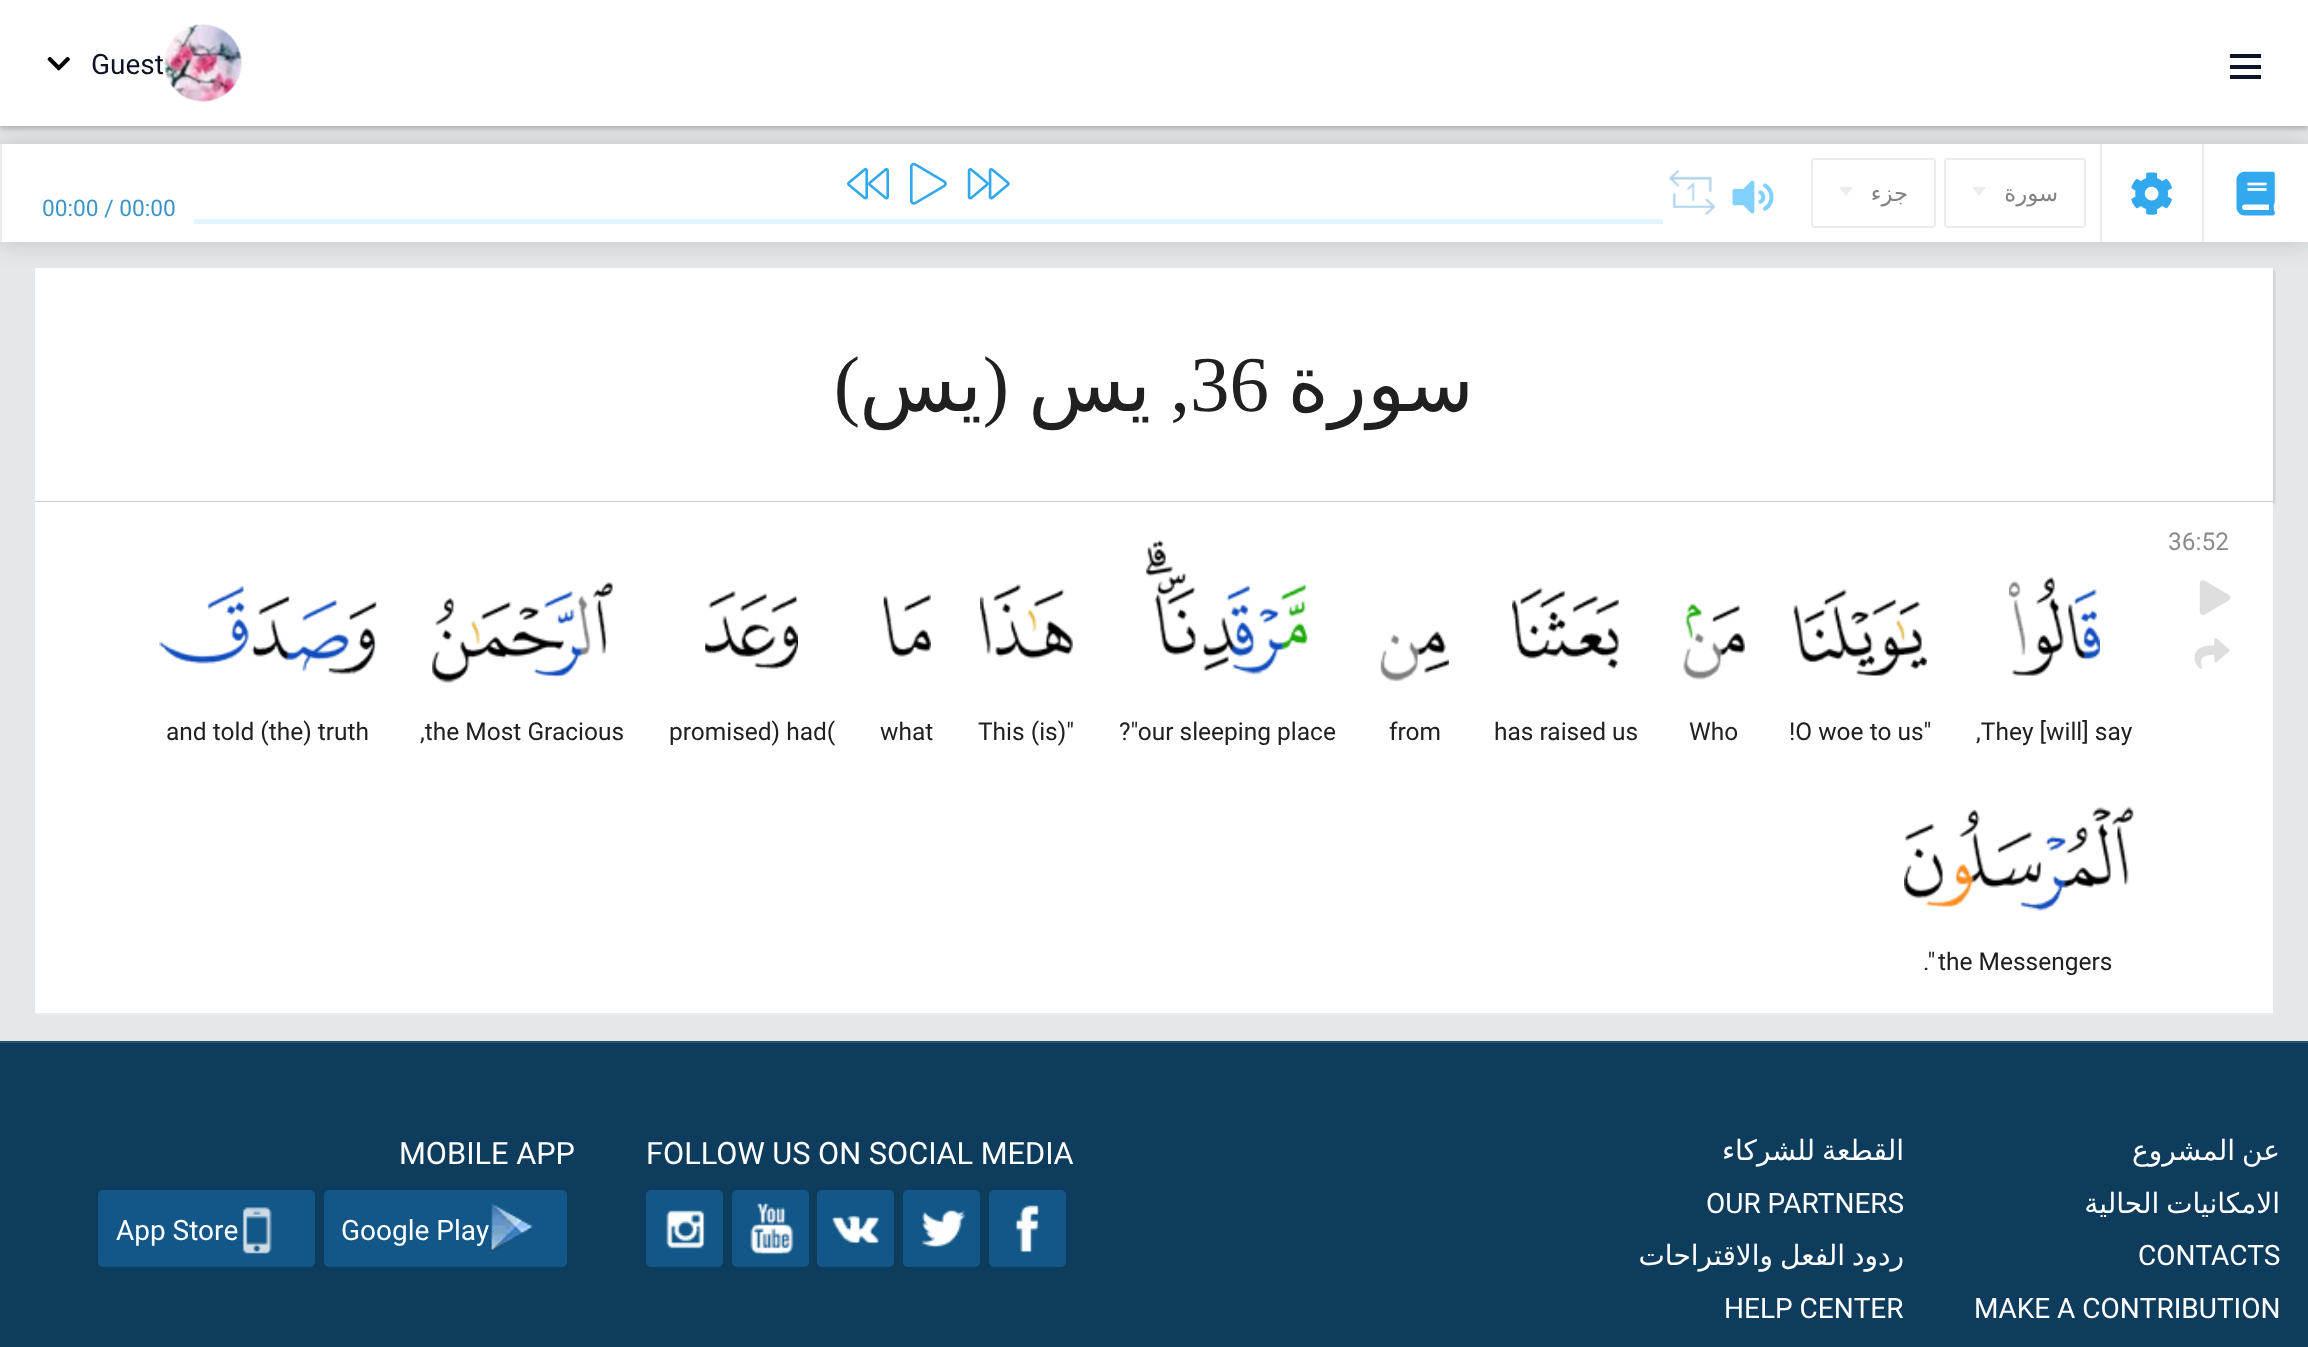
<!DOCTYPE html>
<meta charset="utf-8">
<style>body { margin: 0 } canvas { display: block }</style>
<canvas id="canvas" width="2308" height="1347"></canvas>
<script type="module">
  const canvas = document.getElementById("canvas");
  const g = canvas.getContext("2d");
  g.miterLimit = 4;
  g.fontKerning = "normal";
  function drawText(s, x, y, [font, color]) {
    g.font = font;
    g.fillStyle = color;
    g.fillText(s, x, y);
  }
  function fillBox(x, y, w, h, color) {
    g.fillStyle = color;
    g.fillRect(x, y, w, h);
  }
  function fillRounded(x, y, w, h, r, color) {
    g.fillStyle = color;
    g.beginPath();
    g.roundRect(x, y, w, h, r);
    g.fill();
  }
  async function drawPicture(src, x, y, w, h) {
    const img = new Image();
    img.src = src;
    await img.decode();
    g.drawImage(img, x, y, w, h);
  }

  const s1 = ["28px Roboto", "#0D1322"];
  const s2 = ["22.75px Roboto", "#3993C9"];
  const s3 = ["22.75px DejaVu Sans", "#828282"];
  const s4 = ["79px Liberation Serif", "#202020"];
  const s5 = ["79px DejaVu Sans", "#202020"];
  const s6 = ["24.5px Roboto", "#8C8C8C"];
  const s7 = ["24.5px Roboto", "#202020"];
  const s8 = ["30.75px Roboto", "#FFFFFF"];
  const s9 = ["28px Roboto", "#FFFFFF"];
  const s10 = ["28px DejaVu Sans", "#FFFFFF"];

  fillBox(0, 0, 2308, 1347, "#E5E8EB");
  g.fillStyle = "rgba(0, 0, 0, 0.2)";
  g.filter = "blur(2px)";
  g.beginPath();
  g.rect(0, 2, 2308, 126);
  g.fill();
  g.filter = "none";
  g.fillStyle = "rgba(170, 170, 170, 0.5)";
  g.filter = "blur(3.5px)";
  g.beginPath();
  g.rect(0, 2, 2308, 126);
  g.fill();
  g.filter = "none";
  g.fillStyle = "rgba(0, 0, 0, 0.1)";
  g.filter = "blur(1px)";
  g.beginPath();
  g.rect(37, 270, 2238, 234);
  g.fill();
  g.filter = "none";
  fillBox(35, 268, 2238, 233, "#FFFFFF");
  g.fillStyle = "rgba(0, 0, 0, 0.15)";
  g.filter = "blur(13px)";
  g.beginPath();
  g.rect(-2, 142, 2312, 101);
  g.fill();
  g.filter = "none";
  fillBox(0, 0, 2308, 126, "#FFFFFF");
  await drawPicture("pic1.png", 47, 56, 23, 15);
  drawText("Guest", 91, 74, s1);
  await drawPicture("pic2.png", 164, 24, 78, 78);
  fillBox(2230, 54, 31, 4, "#0D1322");
  fillBox(2230, 65, 31, 4, "#0D1322");
  fillBox(2230, 75, 31, 4, "#0D1322");
  fillBox(2, 144, 2306, 98, "#FFFFFF");
  fillBox(0, 144, 2, 98, "#ECECEC");
  drawText("00:00 / 00:00", 42, 216, s2);
  await drawPicture("pic3.png", 847, 168, 42, 32);
  await drawPicture("pic4.png", 910, 162, 37, 43);
  await drawPicture("pic5.png", 967, 168, 43, 32);
  fillBox(194, 219, 1469, 5, "#E0F5FF");
  await drawPicture("pic6.png", 1669, 169, 47, 46);
  await drawPicture("pic7.png", 1732, 180, 42, 34);
  g.beginPath();
  g.roundRect(1812, 159, 123, 68, 3);
  g.strokeStyle = "#ECECEC";
  g.lineWidth = 2;
  g.stroke();
  g.fillStyle = "#ECECEC";
  g.beginPath();
  g.moveTo(1839, 187);
  g.lineTo(1853, 187);
  g.lineTo(1846, 196);
  g.closePath();
  g.fill();
  g.direction = "rtl";
  drawText("جزء", 1908, 201, s3);
  g.beginPath();
  g.roundRect(1945, 159, 140, 68, 3);
  g.stroke();
  g.fillStyle = "#ECECEC";
  g.beginPath();
  g.moveTo(1972, 187);
  g.lineTo(1986, 187);
  g.lineTo(1979, 196);
  g.closePath();
  g.fill();
  drawText("سورة", 2058, 201, s3);
  fillBox(2202, 144, 2, 98, "#ECECEC");
  fillBox(2100, 144, 2, 98, "#ECECEC");
  await drawPicture("pic8.png", 2131, 172, 41, 43);
  await drawPicture("pic9.png", 2236, 171, 39, 45);
  fillBox(35, 501, 2238, 1, "#CCCCCC");
  drawText(")", 860, 411, s4);
  drawText("يس", 982, 411, s5);
  drawText("(", 1009, 411, s4);
  drawText("يس", 1151, 411, s5);
  drawText(",", 1190, 411, s4);
  g.direction = "ltr";
  drawText("36", 1190, 411, s4);
  g.direction = "rtl";
  drawText("سورة", 1474, 411, s5);
  fillBox(35, 502, 2238, 511, "#FFFFFF");
  fillBox(35, 1013, 2238, 2, "#EEEEEE");
  g.direction = "ltr";
  drawText("36:52", 2168, 550, s6);
  await drawPicture("pic10.png", 2199, 580, 32, 35);
  await drawPicture("pic11.png", 2194, 638, 36, 31);
  await drawPicture("pic12.png", 159, 585, 218, 90);
  drawText("and told (the) truth", 166, 740, s7);
  await drawPicture("pic13.png", 432, 582, 181, 101);
  drawText(",the Most Gracious", 420, 740, s7);
  await drawPicture("pic14.png", 705, 591, 93, 78);
  drawText("promised) had(", 669, 740, s7);
  await drawPicture("pic15.png", 883, 594, 48, 63);
  drawText("what", 880, 740, s7);
  await drawPicture("pic16.png", 980, 584, 93, 75);
  drawText("This (is)\"", 978, 740, s7);
  await drawPicture("pic17.png", 1146, 540, 162, 135);
  drawText("?\"our sleeping place", 1119, 740, s7);
  await drawPicture("pic18.png", 1380, 631, 69, 51);
  drawText("from", 1389, 740, s7);
  await drawPicture("pic19.png", 1512, 587, 107, 82);
  drawText("has raised us", 1494, 740, s7);
  await drawPicture("pic20.png", 1683, 603, 62, 77);
  drawText("Who", 1689, 740, s7);
  await drawPicture("pic21.png", 1793, 589, 134, 87);
  drawText("!O woe to us\"", 1789, 740, s7);
  await drawPicture("pic22.png", 2009, 577, 91, 99);
  drawText(",They [will] say", 1976, 740, s7);
  await drawPicture("pic23.png", 1904, 806, 230, 105);
  drawText(".\"", 1923, 970, s7);
  drawText("the Messengers", 1938, 970, s7);
  fillBox(0, 1043, 2308, 304, "#0E3C5C");
  fillBox(0, 1041, 2308, 2, "#27506D");
  drawText("MOBILE APP", 399, 1164, s8);
  fillRounded(98, 1190, 217, 77, 5, "#125788");
  drawText("App Store", 116, 1240, s9);
  await drawPicture("pic24.png", 242, 1207, 30, 47);
  fillRounded(324, 1190, 243, 77, 5, "#125788");
  drawText("Google Play", 341, 1240, s9);
  await drawPicture("pic25.png", 491, 1203, 42, 49);
  drawText("FOLLOW US ON SOCIAL MEDIA", 646, 1164, s8);
  fillRounded(646, 1190, 77, 77, 5, "#125788");
  await drawPicture("pic26.png", 666, 1210, 40, 39);
  fillRounded(732, 1190, 77, 77, 5, "#125788");
  await drawPicture("pic27.png", 750, 1202, 44, 53);
  fillRounded(817, 1190, 77, 77, 5, "#125788");
  await drawPicture("pic28.png", 832, 1215, 47, 30);
  fillRounded(903, 1190, 77, 77, 5, "#125788");
  await drawPicture("pic29.png", 922, 1209, 44, 39);
  fillRounded(989, 1190, 77, 77, 5, "#125788");
  await drawPicture("pic30.png", 1015, 1205, 25, 48);
  g.wordSpacing = "-2px";
  g.direction = "rtl";
  drawText("القطعة للشركاء", 1904, 1160, s10);
  g.wordSpacing = "0px";
  g.direction = "ltr";
  drawText("OUR PARTNERS", 1706, 1213, s9);
  g.wordSpacing = "-2px";
  g.direction = "rtl";
  drawText("ردود الفعل والاقتراحات", 1904, 1265, s10);
  g.wordSpacing = "0px";
  g.direction = "ltr";
  drawText("HELP CENTER", 1724, 1318, s9);
  g.wordSpacing = "-2px";
  g.direction = "rtl";
  drawText("عن المشروع", 2280, 1160, s10);
  drawText("الامكانيات الحالية", 2280, 1213, s10);
  g.wordSpacing = "0px";
  g.direction = "ltr";
  drawText("CONTACTS", 2138, 1265, s9);
  drawText("MAKE A CONTRIBUTION", 1974, 1318, s9);
</script>
